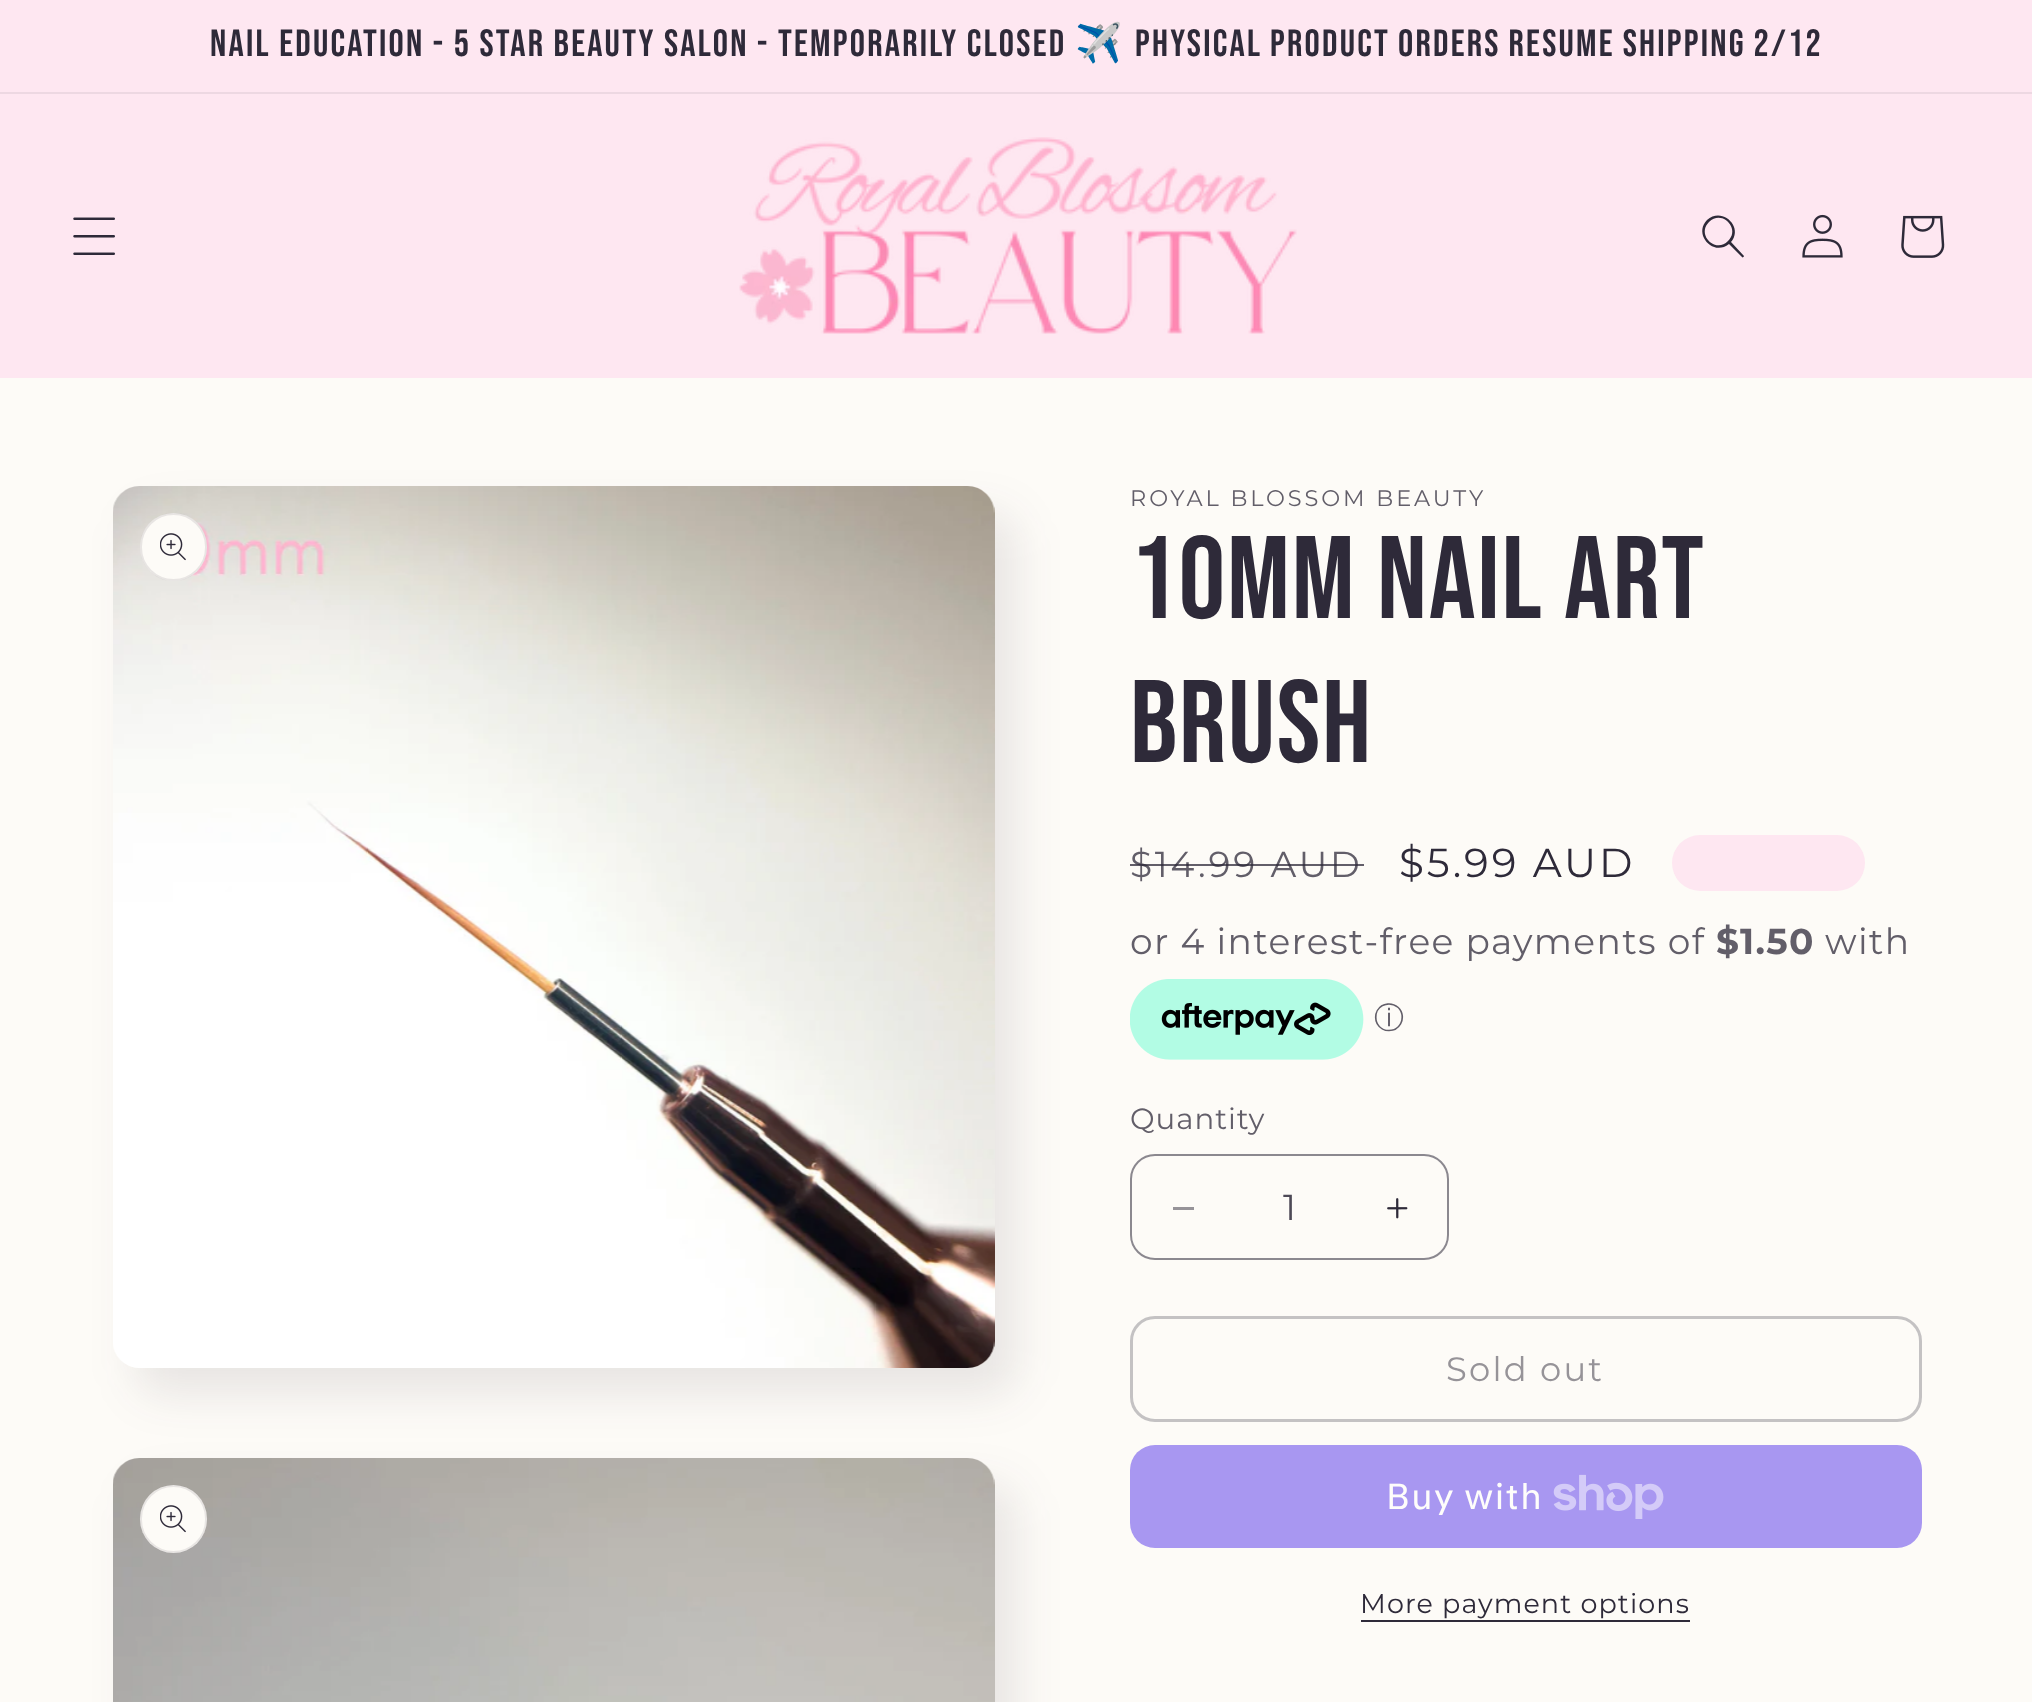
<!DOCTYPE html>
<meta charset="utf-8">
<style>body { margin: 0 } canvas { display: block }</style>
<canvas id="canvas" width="2032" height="1702"></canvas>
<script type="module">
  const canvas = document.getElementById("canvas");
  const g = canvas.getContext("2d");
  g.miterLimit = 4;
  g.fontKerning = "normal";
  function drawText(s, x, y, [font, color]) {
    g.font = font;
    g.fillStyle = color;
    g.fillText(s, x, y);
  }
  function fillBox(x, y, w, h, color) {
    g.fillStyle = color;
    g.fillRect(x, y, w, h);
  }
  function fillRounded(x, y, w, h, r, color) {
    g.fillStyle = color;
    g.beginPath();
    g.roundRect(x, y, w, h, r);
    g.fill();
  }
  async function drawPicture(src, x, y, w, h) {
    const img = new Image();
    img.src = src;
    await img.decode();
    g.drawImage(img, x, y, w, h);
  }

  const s1 = ["38px Bebas Neue", "#2E2A39"];
  const s2 = ["38px Noto Color Emoji", "#2E2A39"];
  const s3 = ["22.5px Montserrat", "#625E69"];
  const s4 = ["117px Bebas Neue", "#2E2A39"];
  const s5 = ["36px Montserrat", "#625E69"];
  const s6 = ["40.5px Montserrat", "#2E2A39"];
  const s7 = ["bold 36px Montserrat", "#625E69"];
  const s8 = ["500 30px WenQuanYi Zen Hei", "#625E69"];
  const s9 = ["29.25px Montserrat", "#625E69"];
  const s10 = ["36px Montserrat", "#4D4956"];
  const s11 = ["33.75px Montserrat", "#969398"];
  const s12 = ["36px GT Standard", "#FEFDFB"];
  const s13 = ["27px Montserrat", "#2E2A39"];

  fillBox(0, 0, 2032, 1702, "#FDFBF7");
  fillBox(0, 0, 2032, 378, "#FEE7F1");
  await drawPicture("pic1.png", 73, 217, 42, 38);
  await drawPicture("pic2.png", 739, 137, 558, 197);
  g.fillStyle = "#2E2A39";
  g.beginPath();
  g.moveTo(1728, 241);
  g.bezierCurveTo(1716, 254, 1696, 235, 1709, 222);
  g.bezierCurveTo(1722, 209, 1741, 229, 1728, 241);
  g.moveTo(1729, 244);
  g.bezierCurveTo(1713, 257, 1693, 234, 1707, 220);
  g.bezierCurveTo(1722, 206, 1744, 227, 1731, 242);
  g.lineTo(1744, 256);
  g.bezierCurveTo(1744, 257, 1742, 258, 1742, 257);
  g.closePath();
  g.fill("evenodd");
  await drawPicture("pic3.png", 1802, 214, 41, 44);
  await drawPicture("pic4.png", 1901, 215, 44, 43);
  fillBox(0, 92, 2032, 2, "#EDD8E2");
  g.letterSpacing = "2.25px";
  drawText("NAIL EDUCATION - 5 STAR BEAUTY SALON - TEMPORARILY CLOSED", 210, 56, s1);
  drawText("✈️", 1075, 56, s2);
  g.wordSpacing = "-0.5px";
  drawText("PHYSICAL PRODUCT ORDERS RESUME SHIPPING 2/12", 1135, 56, s1);
  g.fillStyle = "rgba(46, 42, 57, 0.1)";
  g.filter = "blur(22.5px)";
  g.beginPath();
  g.roundRect(135, 513, 882, 882, 27);
  g.fill();
  g.filter = "none";
  fillRounded(113, 486, 882, 882, 27, "#FDFBF7");
  await drawPicture("pic5.png", 113, 486, 882, 882);
  fillRounded(140, 513, 67, 68, 33.5, "#FDFBF7");
  g.beginPath();
  g.roundRect(141, 514, 65, 66, 32.5);
  g.strokeStyle = "rgba(46, 42, 57, 0.1)";
  g.lineWidth = 2;
  g.stroke();
  await drawPicture("pic6.png", 160, 533, 26, 28);
  g.fillStyle = "rgba(46, 42, 57, 0.1)";
  g.filter = "blur(22.5px)";
  g.beginPath();
  g.roundRect(135, 1485, 882, 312, 27);
  g.fill();
  g.filter = "none";
  fillRounded(113, 1458, 882, 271, 27, "#FDFBF7");
  await drawPicture("pic7.png", 113, 1458, 882, 244);
  fillRounded(140, 1485, 67, 68, 33.5, "#FDFBF7");
  g.beginPath();
  g.roundRect(141, 1486, 65, 66, 32.5);
  g.stroke();
  await drawPicture("pic6.png", 160, 1505, 26, 28);
  g.letterSpacing = "2.9px";
  g.wordSpacing = "0px";
  drawText("ROYAL BLOSSOM BEAUTY", 1130, 506, s3);
  g.letterSpacing = "1.75px";
  drawText("10mm Nail Art", 1130, 618, s4);
  drawText("Brush", 1130, 762, s4);
  g.letterSpacing = "2.9px";
  drawText("$14.99 AUD", 1130, 877, s5);
  fillBox(1130, 864, 234, 2, "rgba(46, 42, 57, 0.75)");
  drawText("$5.99 AUD", 1399, 877, s6);
  fillRounded(1672, 835, 193, 56, 28, "#FEE7F1");
  g.letterSpacing = "1.35px";
  drawText("or 4 interest-free payments of", 1130, 954, s5);
  drawText("$1.50", 1716, 954, s7);
  drawText("with", 1825, 954, s5);
  await drawPicture("pic8.png", 1130, 979, 234, 81);
  g.letterSpacing = "0px";
  drawText("ⓘ", 1374, 1028, s8);
  g.letterSpacing = "1px";
  drawText("Quantity", 1130, 1129, s9);
  fillBox(1173, 1207, 21, 3, "#969398");
  await drawPicture("pic9.png", 1387, 1198, 21, 21);
  g.beginPath();
  g.roundRect(1131, 1155, 317, 104, 24);
  g.strokeStyle = "#8B888F";
  g.stroke();
  g.letterSpacing = "0px";
  drawText("1", 1283, 1220, s10);
  g.beginPath();
  g.roundRect(1131.5, 1317.5, 789, 103, 23.5);
  g.strokeStyle = "#C4C2C3";
  g.lineWidth = 3;
  g.stroke();
  g.letterSpacing = "2.25px";
  drawText("Sold out", 1446, 1381, s11);
  fillRounded(1130, 1445, 792, 103, 25, "#A897F1");
  g.letterSpacing = "1.35px";
  drawText("Buy with", 1386, 1509, s12);
  await drawPicture("pic10.png", 1553, 1474, 111, 45);
  g.letterSpacing = "1.1px";
  drawText("More payment options", 1360, 1613, s13);
  fillBox(1361, 1620, 329, 2, "#2E2A39");
</script>
